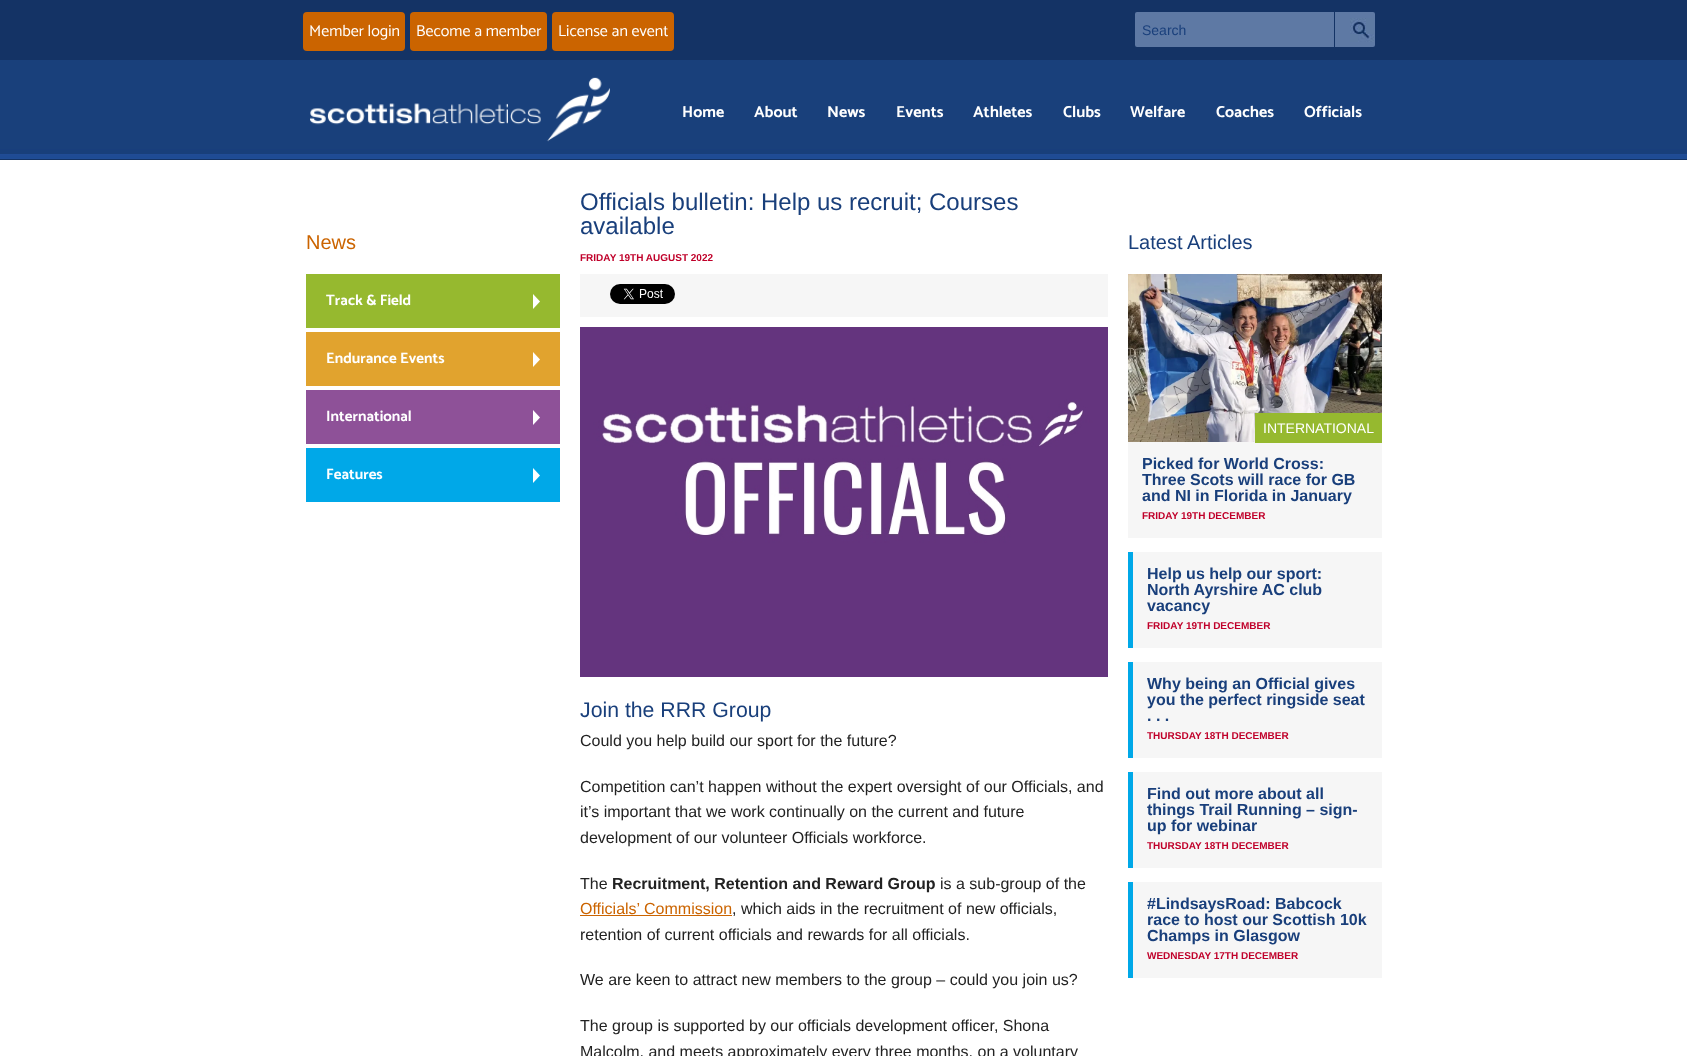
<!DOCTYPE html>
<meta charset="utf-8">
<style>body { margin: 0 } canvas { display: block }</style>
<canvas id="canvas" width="1687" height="1056"></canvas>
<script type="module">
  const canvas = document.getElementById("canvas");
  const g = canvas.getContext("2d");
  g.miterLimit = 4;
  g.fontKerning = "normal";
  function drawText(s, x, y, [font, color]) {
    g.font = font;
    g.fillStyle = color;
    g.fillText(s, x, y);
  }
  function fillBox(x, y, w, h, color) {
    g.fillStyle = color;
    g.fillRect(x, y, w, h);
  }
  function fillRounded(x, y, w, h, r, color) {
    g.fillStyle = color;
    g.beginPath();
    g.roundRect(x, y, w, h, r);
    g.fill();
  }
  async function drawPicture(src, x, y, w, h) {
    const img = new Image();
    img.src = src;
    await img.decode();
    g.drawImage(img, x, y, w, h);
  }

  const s1 = ["16px Catamaran", "#FFFFFF"];
  const s2 = ["14px Liberation Sans", "#193F7B"];
  const s3 = ["bold 16px Catamaran", "#FFFFFF"];
  const s4 = ["20px Liberation Sans", "#CB6400"];
  const s5 = ["bold 15px Catamaran", "#FFFFFF"];
  const s6 = ["24px Liberation Sans", "#193F7B"];
  const s7 = ["bold 10px Liberation Sans", "#C0002A"];
  const s8 = ["21.25px Liberation Sans", "#193F7B"];
  const s9 = ["16px Liberation Sans", "#222222"];
  const s10 = ["bold 16px Liberation Sans", "#222222"];
  const s11 = ["16px Liberation Sans", "#CB6400"];
  const s12 = ["20px Liberation Sans", "#193F7B"];
  const s13 = ["14px Liberation Sans", "#FFFFFF"];
  const s14 = ["bold 16px Liberation Sans", "#193F7B"];

  fillBox(0, 0, 1687, 1056, "#FFFFFF");
  fillBox(0, 0, 1687, 60, "#143365");
  fillRounded(303, 12, 102, 39, 4, "#CB6400");
  drawText("Member login", 309, 36, s1);
  fillRounded(410, 12, 137, 39, 4, "#CB6400");
  drawText("Become a member", 416, 36, s1);
  fillRounded(552, 12, 122, 39, 4, "#CB6400");
  drawText("License an event", 558, 36, s1);
  g.fillStyle = "#5E79A4";
  g.beginPath();
  g.roundRect(1135, 12, 199, 35, [2, 0, 0, 2]);
  g.fill();
  drawText("Search", 1142, 35, s2);
  g.fillStyle = "#5E79A4";
  g.beginPath();
  g.roundRect(1335, 12, 40, 35, [0, 2, 2, 0]);
  g.fill();
  await drawPicture("pic1.png", 1350, 18, 24, 24);
  await drawPicture("pic2.png", 0, 60, 1687, 100);
  await drawPicture("pic3.png", 310, 77, 300, 65);
  drawText("Home", 682, 117, s3);
  drawText("About", 754, 117, s3);
  drawText("News", 827, 117, s3);
  drawText("Events", 896, 117, s3);
  drawText("Athletes", 973, 117, s3);
  drawText("Clubs", 1063, 117, s3);
  drawText("Welfare", 1130, 117, s3);
  drawText("Coaches", 1216, 117, s3);
  drawText("Officials", 1304, 117, s3);
  drawText("News", 306, 249, s4);
  fillBox(306, 274, 254, 54, "#96B92F");
  await drawPicture("pic4.png", 533, 294, 7, 15);
  drawText("Track & Field", 326, 305, s5);
  fillBox(306, 332, 254, 54, "#E1A32E");
  await drawPicture("pic5.png", 533, 352, 7, 15);
  drawText("Endurance Events", 326, 363, s5);
  fillBox(306, 390, 254, 54, "#8E5198");
  await drawPicture("pic6.png", 533, 410, 7, 15);
  drawText("International", 326, 421, s5);
  fillBox(306, 448, 254, 54, "#00A8E8");
  await drawPicture("pic7.png", 533, 468, 7, 15);
  drawText("Features", 326, 479, s5);
  drawText("Officials bulletin: Help us recruit; Courses", 580, 210, s6);
  drawText("available", 580, 234, s6);
  drawText("FRIDAY 19TH AUGUST 2022", 580, 261, s7);
  fillBox(580, 274, 528, 43, "#F6F6F6");
  await drawPicture("pic8.png", 610, 284, 65, 20);
  await drawPicture("pic9.png", 580, 327, 528, 350);
  drawText("Join the RRR Group", 580, 717, s8);
  drawText("Could you help build our sport for the future?", 580, 746, s9);
  drawText("Competition can’t happen without the expert oversight of our Officials, and", 580, 792, s9);
  drawText("it’s important that we work continually on the current and future", 580, 817, s9);
  drawText("development of our volunteer Officials workforce.", 580, 843, s9);
  drawText("The", 580, 889, s9);
  drawText("Recruitment, Retention and Reward Group", 612, 889, s10);
  drawText("is a sub-group of the", 940, 889, s9);
  drawText("Officials’ Commission", 580, 914, s11);
  fillBox(580, 915, 152, 1, "#CB6400");
  drawText(", which aids in the recruitment of new officials,", 732, 914, s9);
  drawText("retention of current officials and rewards for all officials.", 580, 940, s9);
  drawText("We are keen to attract new members to the group – could you join us?", 580, 985, s9);
  drawText("The group is supported by our officials development officer, Shona", 580, 1031, s9);
  drawText("Malcolm, and meets approximately every three months, on a voluntary", 580, 1057, s9);
  drawText("Latest Articles", 1128, 249, s12);
  fillBox(1128, 442, 254, 96, "#F6F6F6");
  await drawPicture("pic10.png", 1128, 274, 254, 168);
  fillBox(1255, 413, 127, 30, "#96B92F");
  drawText("INTERNATIONAL", 1263, 433, s13);
  drawText("Picked for World Cross:", 1142, 469, s14);
  drawText("Three Scots will race for GB", 1142, 485, s14);
  drawText("and NI in Florida in January", 1142, 501, s14);
  drawText("FRIDAY 19TH DECEMBER", 1142, 519, s7);
  fillBox(1133, 552, 249, 96, "#F6F6F6");
  fillBox(1128, 552, 5, 96, "#00A8E8");
  drawText("Help us help our sport:", 1147, 579, s14);
  drawText("North Ayrshire AC club", 1147, 595, s14);
  drawText("vacancy", 1147, 611, s14);
  drawText("FRIDAY 19TH DECEMBER", 1147, 629, s7);
  fillBox(1133, 662, 249, 96, "#F6F6F6");
  fillBox(1128, 662, 5, 96, "#00A8E8");
  drawText("Why being an Official gives", 1147, 689, s14);
  drawText("you the perfect ringside seat", 1147, 705, s14);
  drawText(". . .", 1147, 721, s14);
  drawText("THURSDAY 18TH DECEMBER", 1147, 739, s7);
  fillBox(1133, 772, 249, 96, "#F6F6F6");
  fillBox(1128, 772, 5, 96, "#00A8E8");
  drawText("Find out more about all", 1147, 799, s14);
  drawText("things Trail Running – sign-", 1147, 815, s14);
  drawText("up for webinar", 1147, 831, s14);
  drawText("THURSDAY 18TH DECEMBER", 1147, 849, s7);
  fillBox(1133, 882, 249, 96, "#F6F6F6");
  fillBox(1128, 882, 5, 96, "#00A8E8");
  drawText("#LindsaysRoad: Babcock", 1147, 909, s14);
  drawText("race to host our Scottish 10k", 1147, 925, s14);
  drawText("Champs in Glasgow", 1147, 941, s14);
  drawText("WEDNESDAY 17TH DECEMBER", 1147, 959, s7);
</script>
